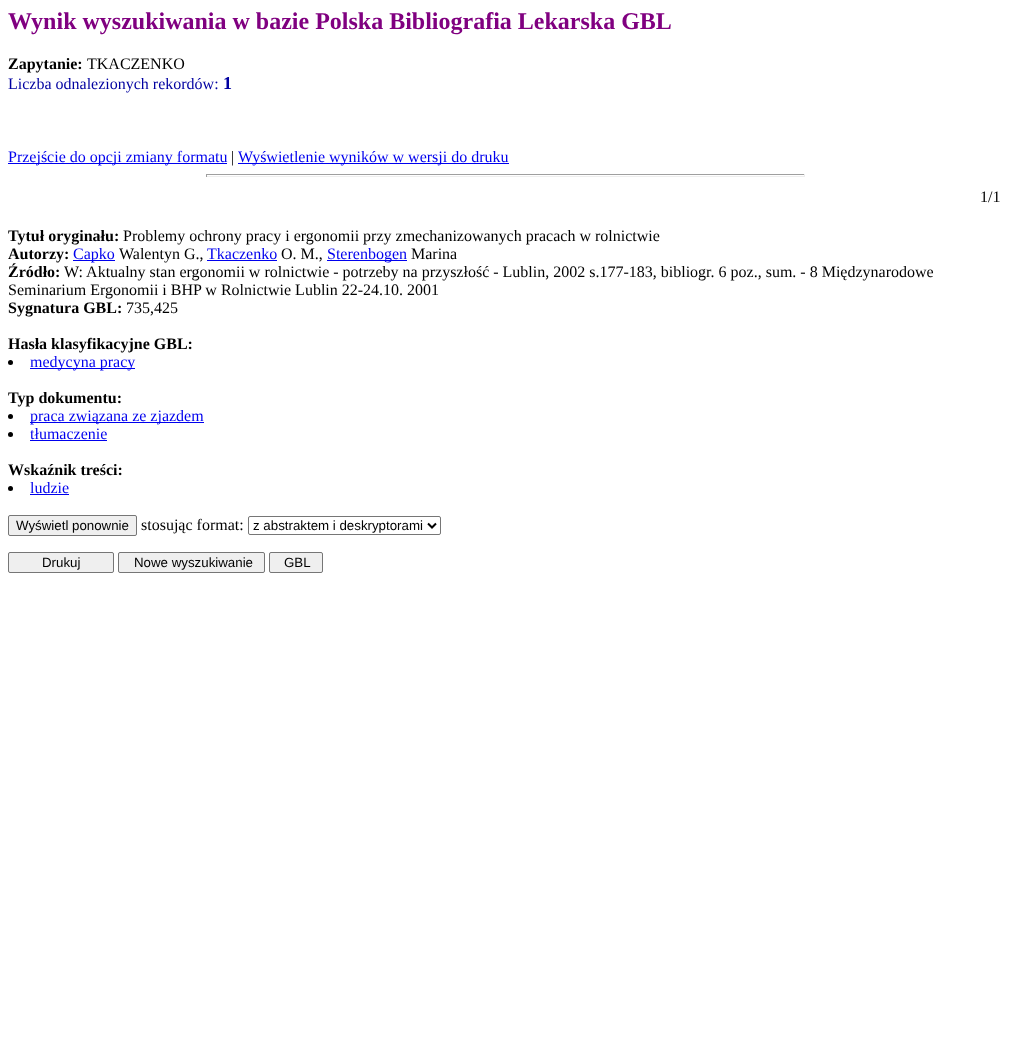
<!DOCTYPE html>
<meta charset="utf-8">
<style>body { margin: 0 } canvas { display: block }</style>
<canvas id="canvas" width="1011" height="1040"></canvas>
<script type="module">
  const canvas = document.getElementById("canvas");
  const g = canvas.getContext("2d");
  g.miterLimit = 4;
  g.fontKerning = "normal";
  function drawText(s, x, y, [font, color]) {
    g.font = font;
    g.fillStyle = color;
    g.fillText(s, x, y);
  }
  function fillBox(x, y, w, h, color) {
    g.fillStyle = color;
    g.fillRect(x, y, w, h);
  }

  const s1 = ["bold 24px Liberation Serif", "#800080"];
  const s2 = ["bold 16px Liberation Serif", "#000000"];
  const s3 = ["16px Liberation Serif", "#000000"];
  const s4 = ["16px Liberation Serif", "#0000A0"];
  const s5 = ["bold 18px Liberation Serif", "#0000A0"];
  const s6 = ["16px Liberation Serif", "#0000EE"];
  const s7 = ["13.3px Liberation Sans", "#000000"];

  fillBox(0, 0, 1011, 1040, "#FFFFFF");
  drawText("Wynik wyszukiwania w bazie Polska Bibliografia Lekarska GBL", 8, 29, s1);
  drawText("Zapytanie:", 8, 69, s2);
  drawText("TKACZENKO", 87, 69, s3);
  drawText("Liczba odnalezionych rekordów:", 8, 89, s4);
  drawText("1", 223, 89, s5);
  fillBox(8, 163, 219, 1, "#0000EE");
  drawText("Przejście do opcji zmiany formatu", 8, 162, s6);
  drawText("|", 231, 162, s3);
  fillBox(238, 163, 271, 1, "#0000EE");
  drawText("Wyświetlenie wyników w wersji do druku", 238, 162, s6);
  fillBox(206, 174, 599, 1, "#9F9F9F");
  fillBox(804, 174, 1, 3, "#EEEEEE");
  fillBox(206, 176, 599, 1, "#EEEEEE");
  fillBox(206, 174, 1, 3, "#9F9F9F");
  drawText("1/1", 980, 202, s3);
  drawText("Tytuł oryginału:", 8, 241, s2);
  drawText("Problemy ochrony pracy i ergonomii przy zmechanizowanych pracach w rolnictwie", 123, 241, s3);
  drawText("Autorzy:", 8, 259, s2);
  fillBox(73, 260, 42, 1, "#0000EE");
  drawText("Capko", 73, 259, s6);
  drawText("Walentyn G.,", 119, 259, s3);
  drawText("Tkaczenko", 207, 259, s6);
  fillBox(207, 260, 70, 1, "#0000EE");
  drawText("O. M.,", 281, 259, s3);
  fillBox(327, 260, 80, 1, "#0000EE");
  drawText("Sterenbogen", 327, 259, s6);
  drawText("Marina", 411, 259, s3);
  drawText("Źródło:", 8, 277, s2);
  drawText("W: Aktualny stan ergonomii w rolnictwie - potrzeby na przyszłość - Lublin, 2002 s.177-183, bibliogr. 6 poz., sum. - 8 Międzynarodowe", 64, 277, s3);
  drawText("Seminarium Ergonomii i BHP w Rolnictwie Lublin 22-24.10. 2001", 8, 295, s3);
  drawText("Sygnatura GBL:", 8, 313, s2);
  drawText("735,425", 126, 313, s3);
  drawText("Hasła klasyfikacyjne GBL:", 8, 349, s2);
  g.beginPath();
  g.arc(10.5, 362.5, 2.5, 0, Math.PI * 2);
  g.fill();
  fillBox(30, 368, 105, 1, "#0000EE");
  drawText("medycyna pracy", 30, 367, s6);
  drawText("Typ dokumentu:", 8, 403, s2);
  g.beginPath();
  g.arc(10.5, 416.5, 2.5, 0, Math.PI * 2);
  g.fill();
  fillBox(30, 422, 174, 1, "#0000EE");
  drawText("praca związana ze zjazdem", 30, 421, s6);
  g.fillStyle = "#000000";
  g.beginPath();
  g.arc(10.5, 434.5, 2.5, 0, Math.PI * 2);
  g.fill();
  drawText("tłumaczenie", 30, 439, s6);
  fillBox(30, 440, 77, 1, "#0000EE");
  drawText("Wskaźnik treści:", 8, 475, s2);
  g.beginPath();
  g.arc(10.5, 488.5, 2.5, 0, Math.PI * 2);
  g.fill();
  drawText("ludzie", 30, 493, s6);
  fillBox(30, 494, 39, 1, "#0000EE");
  g.fillStyle = "#EFEFEF";
  g.beginPath();
  g.roundRect(8.5, 515.5, 128, 20, 1.5);
  g.fill();
  g.strokeStyle = "#767676";
  g.stroke();
  drawText("Wyświetl ponownie", 16, 530, s7);
  drawText("stosując format:", 141, 530, s3);
  g.beginPath();
  g.roundRect(248.5, 516.5, 192, 18, 1.5);
  g.stroke();
  g.beginPath();
  g.moveTo(428, 523.5);
  g.lineTo(432, 527.5);
  g.lineTo(436, 523.5);
  g.strokeStyle = "#000000";
  g.lineWidth = 2;
  g.stroke();
  drawText("z abstraktem i deskryptorami", 253, 530, s7);
  g.fillStyle = "#EFEFEF";
  g.beginPath();
  g.roundRect(8.5, 552.5, 105, 20, 1.5);
  g.fill();
  g.strokeStyle = "#767676";
  g.lineWidth = 1;
  g.stroke();
  drawText("Drukuj", 42, 567, s7);
  g.fillStyle = "#EFEFEF";
  g.beginPath();
  g.roundRect(118.5, 552.5, 146, 20, 1.5);
  g.fill();
  g.stroke();
  drawText("Nowe wyszukiwanie", 134, 567, s7);
  g.fillStyle = "#EFEFEF";
  g.beginPath();
  g.roundRect(269.5, 552.5, 53, 20, 1.5);
  g.fill();
  g.stroke();
  drawText("GBL", 284, 567, s7);
</script>
